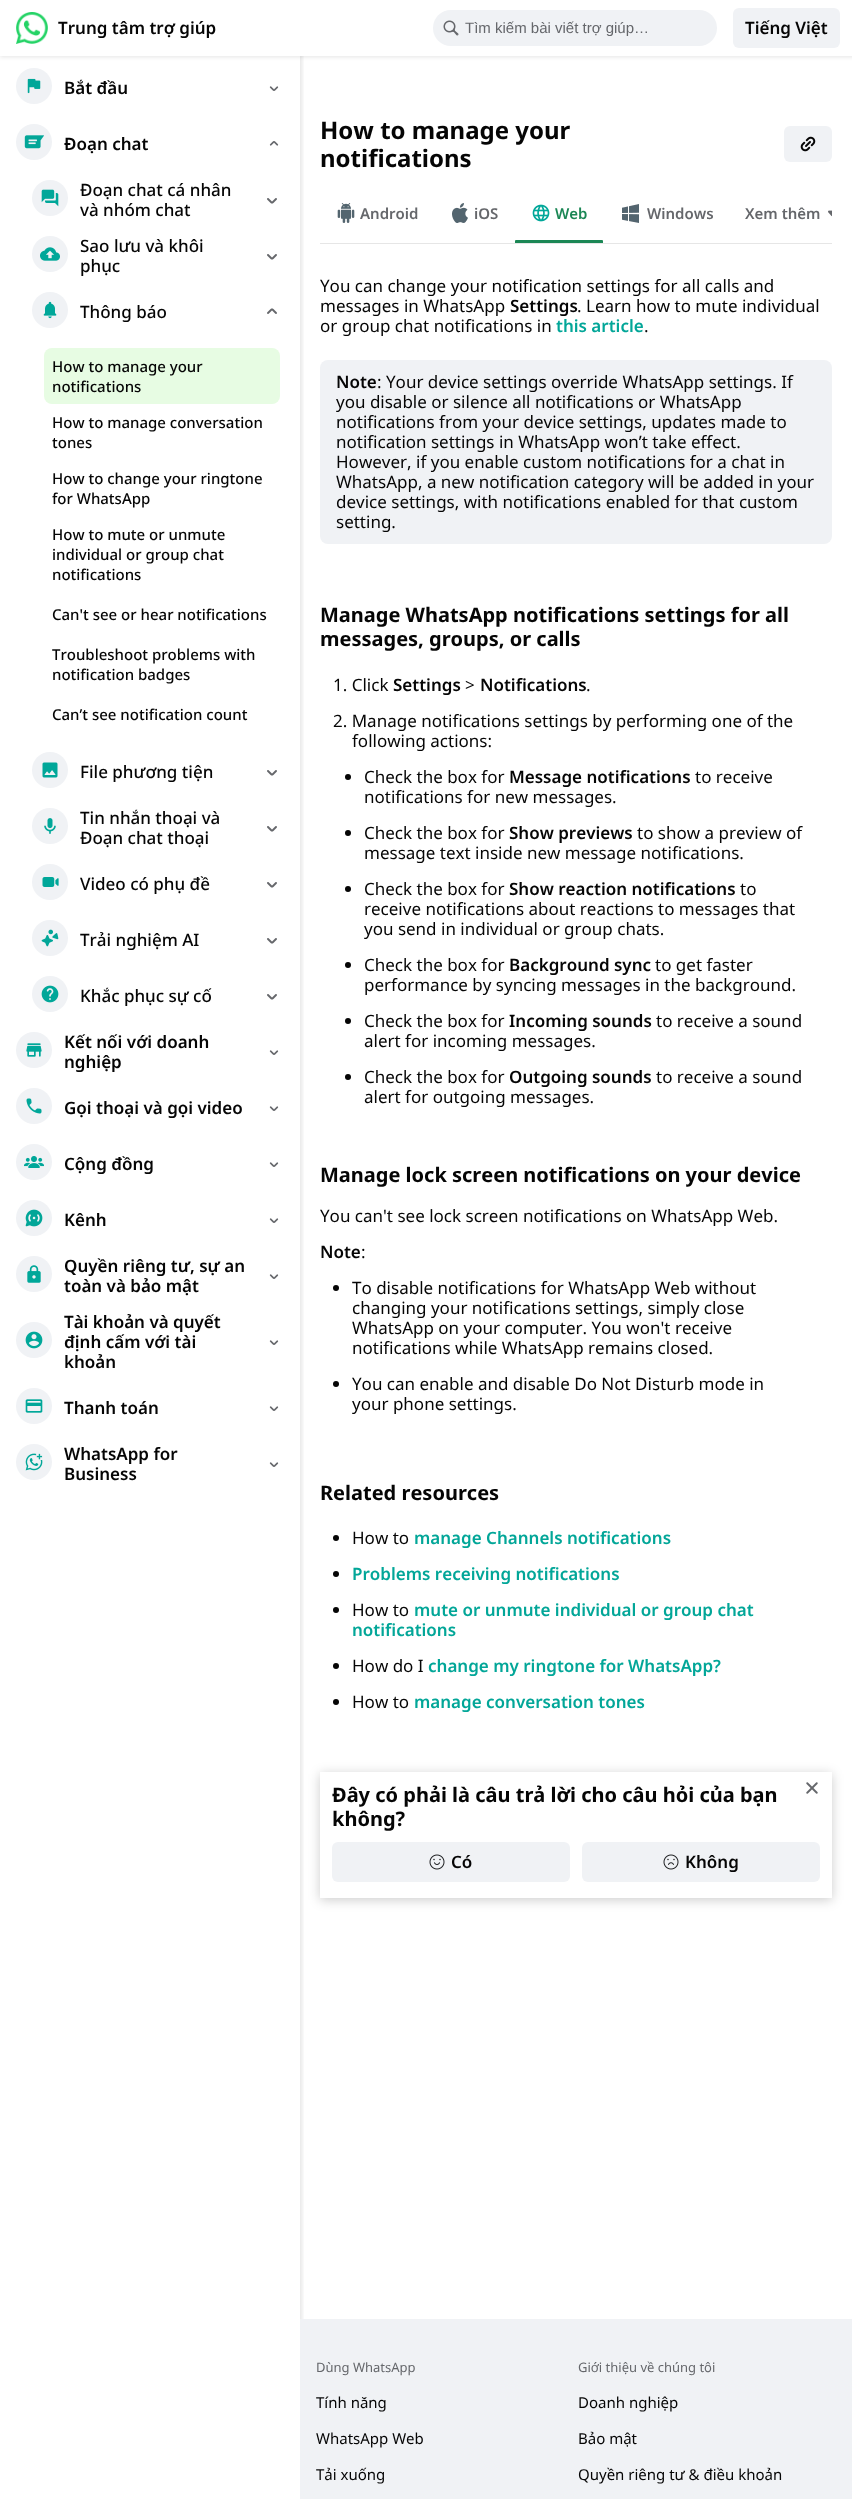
<!DOCTYPE html>
<meta charset="utf-8">
<style>body { margin: 0 } canvas { display: block }</style>
<canvas id="canvas" width="852" height="2499"></canvas>
<script type="module">
  const canvas = document.getElementById("canvas");
  const g = canvas.getContext("2d");
  g.miterLimit = 4;
  g.fontKerning = "none";
  function drawText(s, x, y, [font, color]) {
    g.font = font;
    g.fillStyle = color;
    g.fillText(s, x, y);
  }
  function fillBox(x, y, w, h, color) {
    g.fillStyle = color;
    g.fillRect(x, y, w, h);
  }
  function fillRounded(x, y, w, h, r, color) {
    g.fillStyle = color;
    g.beginPath();
    g.roundRect(x, y, w, h, r);
    g.fill();
  }
  async function drawPicture(src, x, y, w, h) {
    const img = new Image();
    img.src = src;
    await img.decode();
    g.drawImage(img, x, y, w, h);
  }

  const s1 = ["600 17px Noto Sans", "#050505"];
  const s2 = ["15px Liberation Sans", "#65676B"];
  const s3 = ["500 17px Noto Sans", "#050505"];
  const s4 = ["500 15px Noto Sans", "#050505"];
  const s5 = ["bold 24px Noto Sans", "#050505"];
  const s6 = ["600 15px Noto Sans", "#65676B"];
  const s7 = ["600 15px Noto Sans", "#1B8755"];
  const s8 = ["17px Noto Sans", "#050505"];
  const s9 = ["600 17px Noto Sans", "#02A698"];
  const s10 = ["bold 20px Noto Sans", "#050505"];
  const s11 = ["13px Noto Sans", "#65676B"];
  const s12 = ["15px Noto Sans", "#050505"];

  fillBox(0, 0, 852, 2499, "#FFFFFF");
  g.fillStyle = "rgba(0, 0, 0, 0.1)";
  g.filter = "blur(2px)";
  g.beginPath();
  g.rect(0, 1, 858, 56);
  g.fill();
  g.filter = "none";
  g.save();
  g.beginPath();
  g.rect(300, 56, 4, 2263);
  g.clip();
  g.filter = "blur(2px)";
  g.beginPath();
  g.rect(6, 2, 296, 2495);
  g.fill();
  g.filter = "none";
  g.restore();
  fillBox(0, 0, 852, 56, "#FFFFFF");
  await drawPicture("pic1.png", 16, 12, 32, 32);
  drawText("Trung tâm trợ giúp", 58, 34, s1);
  fillRounded(433, 10, 284, 36, 18, "#F0F2F5");
  await drawPicture("pic2.png", 443, 20, 16, 16);
  drawText("Tìm kiếm bài viết trợ giúp…", 465, 33, s2);
  fillRounded(733, 8, 107, 40, 6, "#F0F2F5");
  drawText("Tiếng Việt", 745, 34, s1);
  g.fillStyle = "#F0F2F5";
  g.beginPath();
  g.arc(34, 86, 18, 0, Math.PI * 2);
  g.fill();
  await drawPicture("pic3.png", 27, 78, 14, 16);
  drawText("Bắt đầu", 64, 94, s1);
  await drawPicture("pic4.png", 269, 86, 10, 5);
  g.fillStyle = "#F0F2F5";
  g.beginPath();
  g.arc(34, 142, 18, 0, Math.PI * 2);
  g.fill();
  await drawPicture("pic5.png", 24, 135, 20, 14);
  drawText("Đoạn chat", 64, 150, s1);
  await drawPicture("pic6.png", 269, 141, 10, 5);
  g.fillStyle = "#F0F2F5";
  g.beginPath();
  g.arc(50, 198, 18, 0, Math.PI * 2);
  g.fill();
  await drawPicture("pic7.png", 41, 189, 18, 18);
  drawText("Đoạn chat cá nhân", 80, 196, s3);
  drawText("và nhóm chat", 80, 216, s3);
  await drawPicture("pic8.png", 267, 198, 10, 6);
  g.fillStyle = "#F0F2F5";
  g.beginPath();
  g.arc(50, 254, 18, 0, Math.PI * 2);
  g.fill();
  await drawPicture("pic9.png", 40, 247, 20, 14);
  drawText("Sao lưu và khôi", 80, 252, s3);
  drawText("phục", 80, 272, s3);
  await drawPicture("pic8.png", 267, 254, 10, 6);
  g.fillStyle = "#F0F2F5";
  g.beginPath();
  g.arc(50, 310, 18, 0, Math.PI * 2);
  g.fill();
  await drawPicture("pic10.png", 43, 301, 14, 18);
  drawText("Thông báo", 80, 318, s3);
  await drawPicture("pic11.png", 267, 308, 10, 6);
  fillRounded(44, 348, 236, 56, 8, "#E7FCE3");
  drawText("How to manage your", 52, 372, s4);
  drawText("notifications", 52, 392, s4);
  drawText("How to manage conversation", 52, 428, s4);
  drawText("tones", 52, 448, s4);
  drawText("How to change your ringtone", 52, 484, s4);
  drawText("for WhatsApp", 52, 504, s4);
  drawText("How to mute or unmute", 52, 540, s4);
  drawText("individual or group chat", 52, 560, s4);
  drawText("notifications", 52, 580, s4);
  drawText("Can't see or hear notifications", 52, 620, s4);
  drawText("Troubleshoot problems with", 52, 660, s4);
  drawText("notification badges", 52, 680, s4);
  drawText("Can’t see notification count", 52, 720, s4);
  g.fillStyle = "#F0F2F5";
  g.beginPath();
  g.arc(50, 770, 18, 0, Math.PI * 2);
  g.fill();
  await drawPicture("pic12.png", 42, 762, 16, 16);
  drawText("File phương tiện", 80, 778, s3);
  await drawPicture("pic8.png", 267, 770, 10, 6);
  g.fillStyle = "#F0F2F5";
  g.beginPath();
  g.arc(50, 826, 18, 0, Math.PI * 2);
  g.fill();
  await drawPicture("pic13.png", 44, 818, 12, 16);
  drawText("Tin nhắn thoại và", 80, 824, s3);
  drawText("Đoạn chat thoại", 80, 844, s3);
  await drawPicture("pic8.png", 267, 826, 10, 6);
  g.fillStyle = "#F0F2F5";
  g.beginPath();
  g.arc(50, 882, 18, 0, Math.PI * 2);
  g.fill();
  await drawPicture("pic14.png", 42, 877, 17, 10);
  drawText("Video có phụ đề", 80, 890, s3);
  await drawPicture("pic8.png", 267, 882, 10, 6);
  g.fillStyle = "#F0F2F5";
  g.beginPath();
  g.arc(50, 938, 18, 0, Math.PI * 2);
  g.fill();
  await drawPicture("pic15.png", 41, 929, 18, 18);
  drawText("Trải nghiệm AI", 80, 946, s3);
  await drawPicture("pic8.png", 267, 938, 10, 6);
  g.fillStyle = "#F0F2F5";
  g.beginPath();
  g.arc(50, 994, 18, 0, Math.PI * 2);
  g.fill();
  await drawPicture("pic16.png", 41, 985, 18, 18);
  drawText("Khắc phục sự cố", 80, 1002, s3);
  await drawPicture("pic8.png", 267, 994, 10, 6);
  g.fillStyle = "#F0F2F5";
  g.beginPath();
  g.arc(34, 1050, 18, 0, Math.PI * 2);
  g.fill();
  await drawPicture("pic17.png", 26, 1043, 16, 14);
  drawText("Kết nối với doanh", 64, 1048, s1);
  drawText("nghiệp", 64, 1068, s1);
  await drawPicture("pic4.png", 269, 1050, 10, 5);
  g.fillStyle = "#F0F2F5";
  g.beginPath();
  g.arc(34, 1106, 18, 0, Math.PI * 2);
  g.fill();
  await drawPicture("pic18.png", 26, 1098, 16, 16);
  drawText("Gọi thoại và gọi video", 64, 1114, s1);
  await drawPicture("pic4.png", 269, 1106, 10, 5);
  g.fillStyle = "#F0F2F5";
  g.beginPath();
  g.arc(34, 1162, 18, 0, Math.PI * 2);
  g.fill();
  await drawPicture("pic19.png", 24, 1156, 20, 12);
  drawText("Cộng đồng", 64, 1170, s1);
  await drawPicture("pic4.png", 269, 1162, 10, 5);
  g.fillStyle = "#F0F2F5";
  g.beginPath();
  g.arc(34, 1218, 18, 0, Math.PI * 2);
  g.fill();
  await drawPicture("pic20.png", 25, 1209, 18, 18);
  drawText("Kênh", 64, 1226, s1);
  await drawPicture("pic4.png", 269, 1218, 10, 5);
  g.fillStyle = "#F0F2F5";
  g.beginPath();
  g.arc(34, 1274, 18, 0, Math.PI * 2);
  g.fill();
  await drawPicture("pic21.png", 27, 1265, 14, 18);
  drawText("Quyền riêng tư, sự an", 64, 1272, s1);
  drawText("toàn và bảo mật", 64, 1292, s1);
  await drawPicture("pic4.png", 269, 1274, 10, 5);
  g.fillStyle = "#F0F2F5";
  g.beginPath();
  g.arc(34, 1340, 18, 0, Math.PI * 2);
  g.fill();
  await drawPicture("pic22.png", 25, 1331, 18, 18);
  drawText("Tài khoản và quyết", 64, 1328, s1);
  drawText("định cấm với tài", 64, 1348, s1);
  drawText("khoản", 64, 1368, s1);
  await drawPicture("pic4.png", 269, 1340, 10, 5);
  g.fillStyle = "#F0F2F5";
  g.beginPath();
  g.arc(34, 1406, 18, 0, Math.PI * 2);
  g.fill();
  await drawPicture("pic23.png", 25, 1399, 18, 14);
  drawText("Thanh toán", 64, 1414, s1);
  await drawPicture("pic4.png", 269, 1406, 10, 5);
  g.fillStyle = "#F0F2F5";
  g.beginPath();
  g.arc(34, 1462, 18, 0, Math.PI * 2);
  g.fill();
  await drawPicture("pic24.png", 25, 1453, 18, 18);
  drawText("WhatsApp for", 64, 1460, s1);
  drawText("Business", 64, 1480, s1);
  await drawPicture("pic4.png", 269, 1462, 10, 5);
  fillBox(320, 243, 512, 1, "#E6E6E6");
  drawText("How to manage your", 320, 139, s5);
  drawText("notifications", 320, 167, s5);
  fillRounded(784, 126, 48, 36, 6, "#F0F2F5");
  await drawPicture("pic25.png", 800, 136, 16, 16);
  await drawPicture("pic26.png", 337, 203, 18, 20);
  drawText("Android", 360, 219, s6);
  await drawPicture("pic27.png", 452, 203, 16, 20);
  drawText("iOS", 474, 219, s6);
  await drawPicture("pic28.png", 532, 204, 18, 18);
  drawText("Web", 555, 219, s7);
  g.beginPath();
  g.roundRect(515, 240, 88, 3, [1, 1, 0, 0]);
  g.fill();
  await drawPicture("pic29.png", 622, 204, 17, 19);
  drawText("Windows", 647, 219, s6);
  drawText("Xem thêm", 745, 219, s6);
  await drawPicture("pic30.png", 828, 210, 4, 7);
  drawText("You can change your notification settings for all calls and", 320, 292, s8);
  drawText("messages in WhatsApp", 320, 312, s8);
  drawText("Settings", 510, 312, s1);
  drawText(". Learn how to mute individual", 577, 312, s8);
  drawText("or group chat notifications in", 320, 332, s8);
  drawText("this article", 556, 332, s9);
  drawText(".", 644, 332, s8);
  fillRounded(320, 360, 512, 184, 8, "#F0F2F5");
  drawText("Note", 336, 388, s1);
  drawText(": Your device settings override WhatsApp settings. If", 377, 388, s8);
  drawText("you disable or silence all notifications or WhatsApp", 336, 408, s8);
  drawText("notifications from your device settings, updates made to", 336, 428, s8);
  drawText("notification settings in WhatsApp won’t take effect.", 336, 448, s8);
  drawText("However, if you enable custom notifications for a chat in", 336, 468, s8);
  drawText("WhatsApp, a new notification category will be added in your", 336, 488, s8);
  drawText("device settings, with notifications enabled for that custom", 336, 508, s8);
  drawText("setting.", 336, 528, s8);
  drawText("Manage WhatsApp notifications settings for all", 320, 622, s10);
  drawText("messages, groups, or calls", 320, 646, s10);
  drawText("1. Click", 333, 691, s8);
  drawText("Settings", 393, 691, s1);
  drawText(">", 465, 691, s8);
  drawText("Notifications", 480, 691, s1);
  drawText(".", 586, 691, s8);
  drawText("2. Manage notifications settings by performing one of the", 333, 727, s8);
  drawText("following actions:", 352, 747, s8);
  g.beginPath();
  g.arc(348, 777, 3, 0, Math.PI * 2);
  g.fill();
  drawText("Check the box for", 364, 783, s8);
  drawText("Message notifications", 509, 783, s1);
  drawText("to receive", 695, 783, s8);
  drawText("notifications for new messages.", 364, 803, s8);
  g.beginPath();
  g.arc(348, 833, 3, 0, Math.PI * 2);
  g.fill();
  drawText("Check the box for", 364, 839, s8);
  drawText("Show previews", 509, 839, s1);
  drawText("to show a preview of", 637, 839, s8);
  drawText("message text inside new message notifications.", 364, 859, s8);
  g.beginPath();
  g.arc(348, 889, 3, 0, Math.PI * 2);
  g.fill();
  drawText("Check the box for", 364, 895, s8);
  drawText("Show reaction notifications", 509, 895, s1);
  drawText("to", 740, 895, s8);
  drawText("receive notifications about reactions to messages that", 364, 915, s8);
  drawText("you send in individual or group chats.", 364, 935, s8);
  g.beginPath();
  g.arc(348, 965, 3, 0, Math.PI * 2);
  g.fill();
  drawText("Check the box for", 364, 971, s8);
  drawText("Background sync", 509, 971, s1);
  drawText("to get faster", 655, 971, s8);
  drawText("performance by syncing messages in the background.", 364, 991, s8);
  g.beginPath();
  g.arc(348, 1021, 3, 0, Math.PI * 2);
  g.fill();
  drawText("Check the box for", 364, 1027, s8);
  drawText("Incoming sounds", 509, 1027, s1);
  drawText("to receive a sound", 656, 1027, s8);
  drawText("alert for incoming messages.", 364, 1047, s8);
  g.beginPath();
  g.arc(348, 1077, 3, 0, Math.PI * 2);
  g.fill();
  drawText("Check the box for", 364, 1083, s8);
  drawText("Outgoing sounds", 509, 1083, s1);
  drawText("to receive a sound", 656, 1083, s8);
  drawText("alert for outgoing messages.", 364, 1103, s8);
  drawText("Manage lock screen notifications on your device", 320, 1182, s10);
  drawText("You can't see lock screen notifications on WhatsApp Web.", 320, 1222, s8);
  drawText("Note", 320, 1258, s1);
  drawText(":", 361, 1258, s8);
  g.beginPath();
  g.arc(336, 1288, 3, 0, Math.PI * 2);
  g.fill();
  drawText("To disable notifications for WhatsApp Web without", 352, 1294, s8);
  drawText("changing your notifications settings, simply close", 352, 1314, s8);
  drawText("WhatsApp on your computer. You won't", 352, 1334, s8);
  drawText("receive", 675, 1334, s8);
  drawText("notifications while WhatsApp remains closed.", 352, 1354, s8);
  g.beginPath();
  g.arc(336, 1384, 3, 0, Math.PI * 2);
  g.fill();
  drawText("You can enable and disable Do Not Disturb mode in", 352, 1390, s8);
  drawText("your phone settings.", 352, 1410, s8);
  drawText("Related resources", 320, 1500, s10);
  g.beginPath();
  g.arc(336, 1538, 3, 0, Math.PI * 2);
  g.fill();
  drawText("How to", 352, 1544, s8);
  drawText("manage Channels notifications", 414, 1544, s9);
  g.fillStyle = "#050505";
  g.beginPath();
  g.arc(336, 1574, 3, 0, Math.PI * 2);
  g.fill();
  drawText("Problems receiving notifications", 352, 1580, s9);
  g.fillStyle = "#050505";
  g.beginPath();
  g.arc(336, 1610, 3, 0, Math.PI * 2);
  g.fill();
  drawText("How to", 352, 1616, s8);
  drawText("mute or unmute individual or group chat", 414, 1616, s9);
  drawText("notifications", 352, 1636, s9);
  g.fillStyle = "#050505";
  g.beginPath();
  g.arc(336, 1666, 3, 0, Math.PI * 2);
  g.fill();
  drawText("How do I", 352, 1672, s8);
  drawText("change my ringtone for WhatsApp?", 428, 1672, s9);
  g.fillStyle = "#050505";
  g.beginPath();
  g.arc(336, 1702, 3, 0, Math.PI * 2);
  g.fill();
  drawText("How to", 352, 1708, s8);
  drawText("manage conversation tones", 414, 1708, s9);
  g.save();
  g.beginPath();
  g.moveTo(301, 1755);
  g.lineTo(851, 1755);
  g.lineTo(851, 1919);
  g.lineTo(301, 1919);
  g.closePath();
  g.moveTo(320, 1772);
  g.lineTo(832, 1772);
  g.lineTo(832, 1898);
  g.lineTo(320, 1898);
  g.closePath();
  g.clip("evenodd");
  g.fillStyle = "rgba(0, 0, 0, 0.2)";
  g.filter = "blur(6px)";
  g.beginPath();
  g.rect(320, 1774, 512, 126);
  g.fill();
  g.filter = "none";
  g.restore();
  drawText("Đây có phải là câu trả lời cho câu hỏi của bạn", 332, 1802, s10);
  drawText("không?", 332, 1826, s10);
  await drawPicture("pic31.png", 806, 1782, 12, 12);
  fillRounded(332, 1842, 238, 40, 6, "#F0F2F5");
  await drawPicture("pic32.png", 429, 1854, 16, 16);
  drawText("Có", 451, 1868, s1);
  fillRounded(582, 1842, 238, 40, 6, "#F0F2F5");
  await drawPicture("pic33.png", 663, 1854, 16, 16);
  drawText("Không", 685, 1868, s1);
  fillBox(300, 2319, 552, 180, "#F0F2F5");
  drawText("Dùng WhatsApp", 316, 2372, s11);
  drawText("Tính năng", 316, 2408, s12);
  drawText("WhatsApp Web", 316, 2444, s12);
  drawText("Tải xuống", 316, 2480, s12);
  drawText("Giới thiệu về chúng tôi", 578, 2372, s11);
  drawText("Doanh nghiệp", 578, 2408, s12);
  drawText("Bảo mật", 578, 2444, s12);
  drawText("Quyền riêng tư & điều khoản", 578, 2480, s12);
</script>
